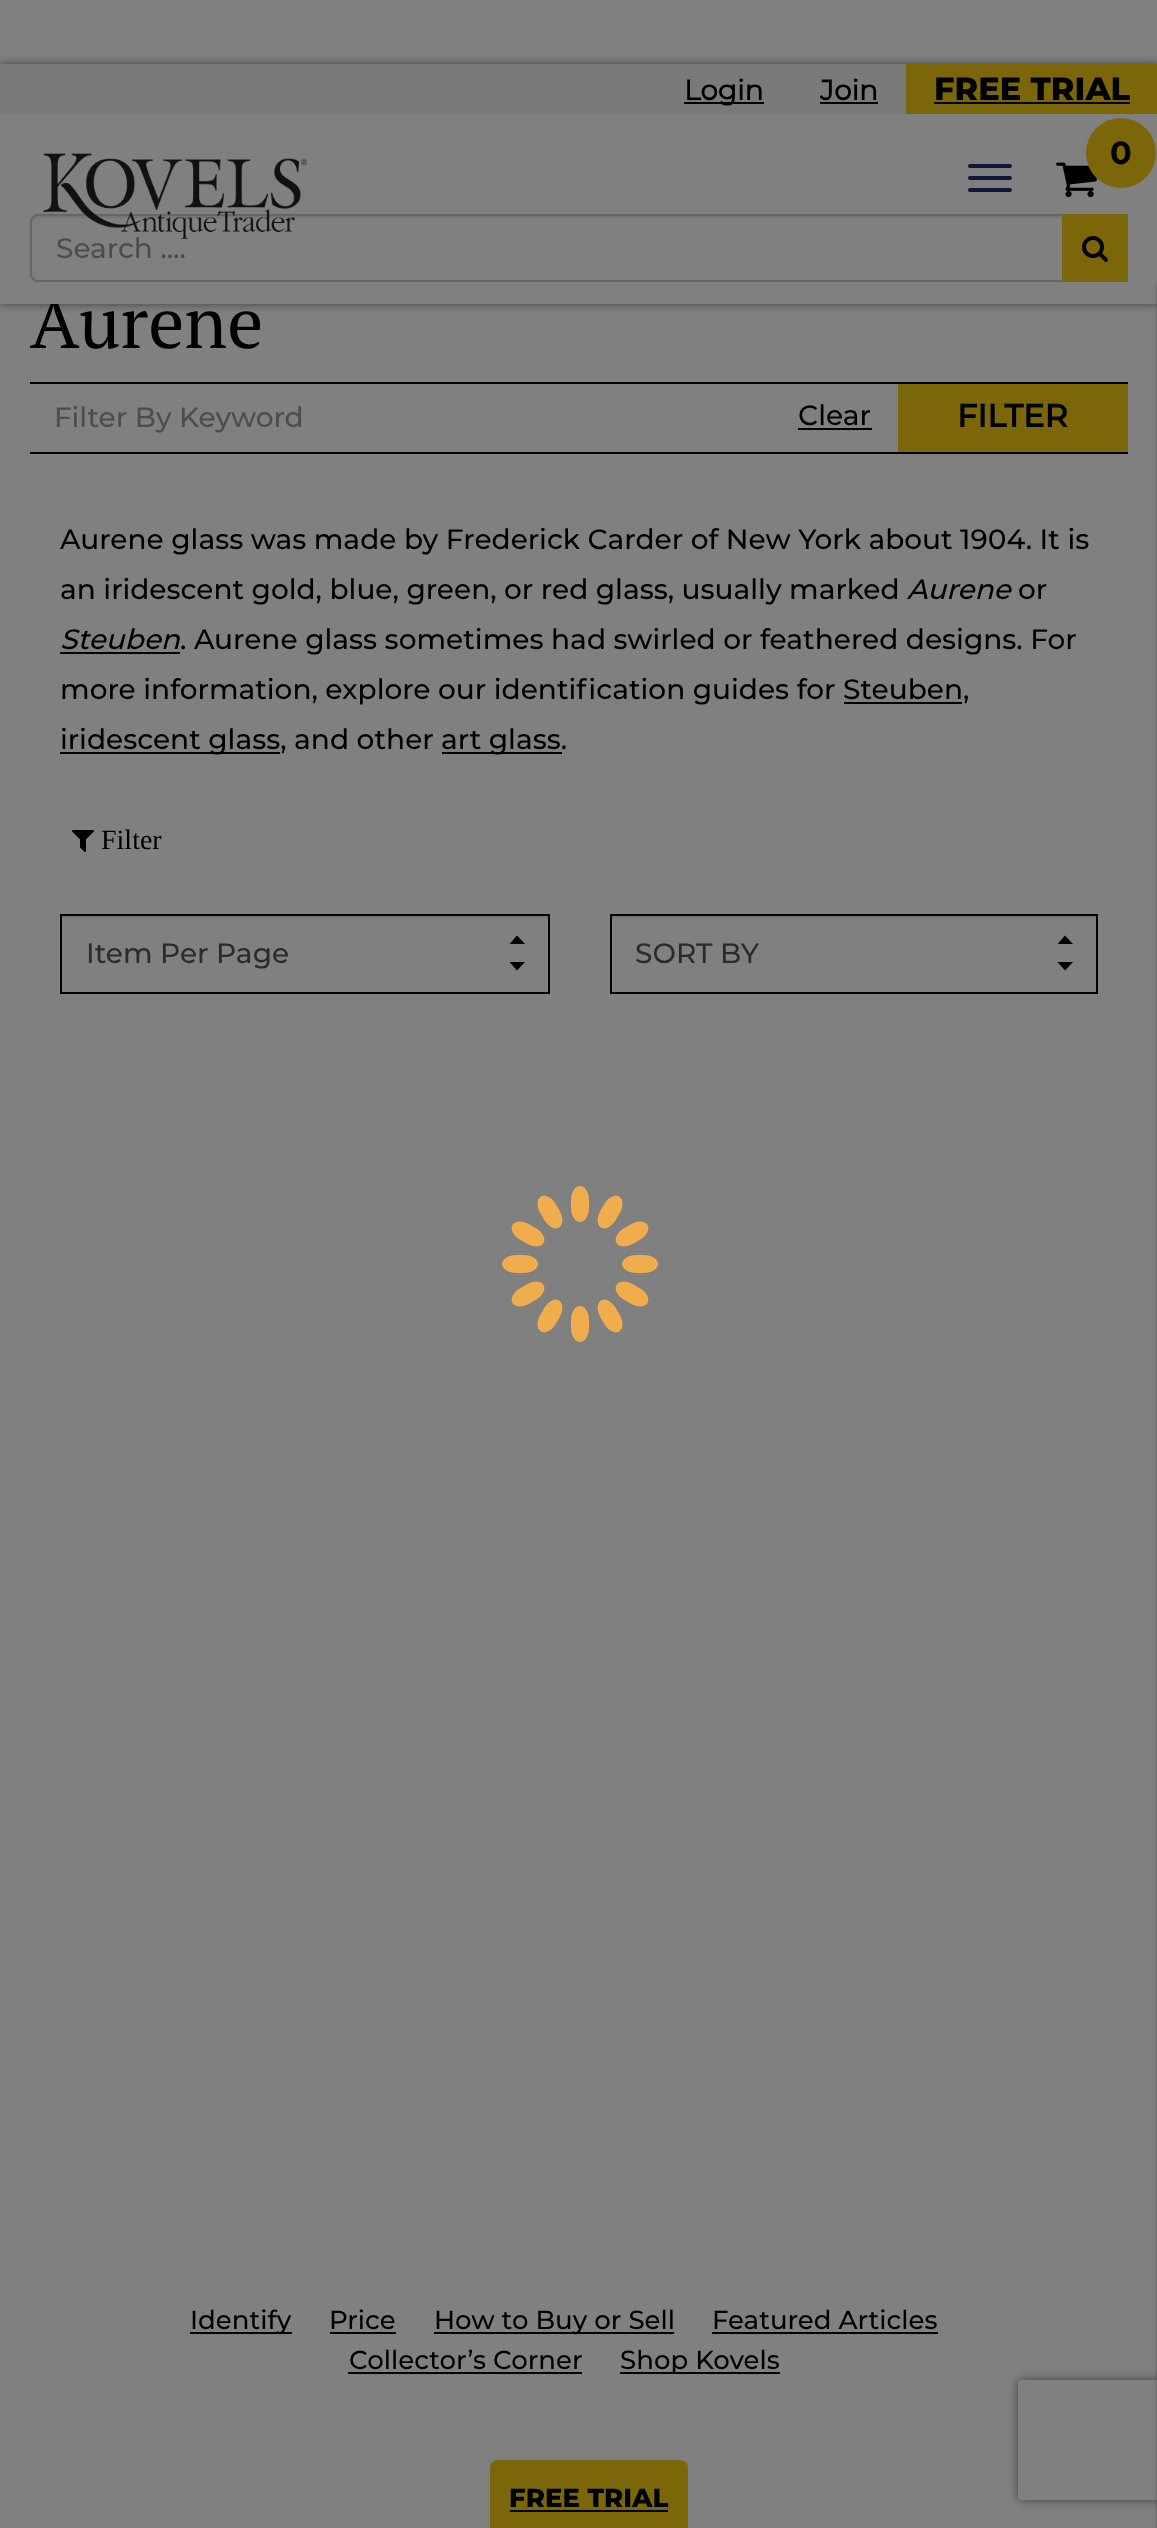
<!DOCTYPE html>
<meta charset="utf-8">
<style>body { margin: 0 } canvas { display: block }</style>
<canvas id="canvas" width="1157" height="2528"></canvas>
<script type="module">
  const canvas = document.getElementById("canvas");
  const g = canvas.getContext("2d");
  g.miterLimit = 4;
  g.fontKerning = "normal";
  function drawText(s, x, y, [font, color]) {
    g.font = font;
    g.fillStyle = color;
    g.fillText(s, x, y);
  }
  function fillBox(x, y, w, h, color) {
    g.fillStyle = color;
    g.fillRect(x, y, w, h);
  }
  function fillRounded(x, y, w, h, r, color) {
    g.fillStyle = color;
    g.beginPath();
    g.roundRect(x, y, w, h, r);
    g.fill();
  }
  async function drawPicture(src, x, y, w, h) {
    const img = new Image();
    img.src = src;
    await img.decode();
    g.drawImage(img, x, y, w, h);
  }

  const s1 = ["72px 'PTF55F'", "#000000"];
  const s2 = ["bold 28px 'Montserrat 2'", "#000000"];
  const s3 = ["800 32px Montserrat", "#000000"];
  const s4 = ["500 28px Montserrat", "#4D4D4D"];
  const s5 = ["bold 32px 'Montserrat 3'", "#000000"];
  const s6 = ["500 28px Montserrat", "#000000"];
  const s7 = ["bold 32px Montserrat", "#000000"];
  const s8 = ["italic 500 28px Montserrat", "#000000"];
  const s9 = ["28px Liberation Serif", "#000000"];
  const s10 = ["500 28px Montserrat", "#2B2B2B"];
  const s11 = ["500 26px Montserrat", "#000000"];
  const s12 = ["800 26px Montserrat", "#000000"];

  fillBox(0, 0, 1157, 2528, "#808080");
  g.fillStyle = "rgba(0, 0, 0, 0.5)";
  g.filter = "blur(5px)";
  g.beginPath();
  g.rect(0, 64, 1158, 240);
  g.fill();
  g.filter = "none";
  drawText("Aurene", 30, 348, s1);
  fillBox(0, 114, 1157, 190, "#808080");
  fillBox(0, 64, 906, 50, "#7A7A7B");
  fillBox(684, 102, 80, 2, "#000000");
  drawText("Login", 684, 100, s2);
  drawText("Join", 820, 100, s2);
  fillBox(820, 102, 58, 2, "#000000");
  fillBox(906, 64, 251, 50, "#7B6709");
  drawText("FREE TRIAL", 934, 100, s3);
  fillBox(934, 102, 196, 2, "#000000");
  g.fillStyle = "#767676";
  g.beginPath();
  g.moveTo(38, 218);
  g.lineTo(1120, 218);
  g.bezierCurveTo(1123, 218, 1126, 221, 1126, 224);
  g.lineTo(1126, 222);
  g.bezierCurveTo(1126, 219, 1123, 216, 1120, 216);
  g.lineTo(38, 216);
  g.bezierCurveTo(35, 216, 32, 219, 32, 222);
  g.lineTo(32, 224);
  g.bezierCurveTo(32, 221, 35, 218, 38, 218);
  g.closePath();
  g.fill();
  g.beginPath();
  g.roundRect(31, 215, 1096, 66, 7);
  g.strokeStyle = "#666666";
  g.lineWidth = 2;
  g.stroke();
  drawText("Search ....", 56, 258, s4);
  await drawPicture("pic1.png", 43, 153, 265, 86);
  fillRounded(968, 164, 44, 4, 2, "#101636");
  fillRounded(968, 176, 44, 4, 2, "#101636");
  fillRounded(968, 188, 44, 4, 2, "#101636");
  await drawPicture("pic2.png", 1056, 162, 41, 36);
  g.fillStyle = "#7B6709";
  g.beginPath();
  g.arc(1121, 153, 35, 0, Math.PI * 2);
  g.fill();
  drawText("0", 1110, 164, s5);
  g.fillStyle = "rgba(0, 0, 0, 0.5)";
  g.filter = "blur(2px)";
  g.beginPath();
  g.rect(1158, 284, 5, 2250);
  g.fill();
  g.filter = "none";
  fillBox(1062, 214, 66, 68, "#7B6709");
  await drawPicture("pic3.png", 1082, 236, 26, 26);
  fillBox(30, 382, 1098, 2, "#000000");
  fillBox(30, 452, 1098, 2, "#000000");
  drawText("Filter By Keyword", 54, 427, s4);
  drawText("Clear", 798, 425, s6);
  fillBox(798, 428, 74, 2, "#000000");
  fillBox(898, 384, 230, 68, "#7B6709");
  drawText("FILTER", 957, 427, s7);
  drawText("Aurene glass was made by Frederick Carder of New York about 1904. It is", 60, 549, s6);
  drawText("an iridescent gold, blue, green, or red glass, usually marked", 60, 599, s6);
  drawText("Aurene", 907, 599, s8);
  drawText("or", 1018, 599, s6);
  drawText("Steuben", 60, 649, s8);
  fillBox(60, 652, 120, 2, "#000000");
  drawText(". Aurene glass sometimes had swirled or feathered designs. For", 180, 649, s6);
  drawText("more information, explore our identification guides for Steuben,", 60, 699, s6);
  fillBox(844, 702, 118, 2, "#000000");
  fillBox(60, 752, 220, 2, "#000000");
  drawText("iridescent glass, and other", 60, 749, s6);
  fillBox(442, 752, 120, 2, "#000000");
  drawText("art glass.", 441, 749, s6);
  await drawPicture("pic4.png", 72, 830, 22, 22);
  drawText("Filter", 101, 849, s9);
  g.beginPath();
  g.moveTo(517, 935.5);
  g.lineTo(509.5, 944);
  g.lineTo(525, 944);
  g.closePath();
  g.moveTo(517, 970.5);
  g.lineTo(509.5, 962);
  g.lineTo(525, 962);
  g.closePath();
  g.fill();
  fillBox(62, 916, 486, 2, "#767676");
  g.strokeStyle = "#000000";
  g.strokeRect(61, 915, 488, 78);
  drawText("Item Per Page", 86, 963, s10);
  g.fillStyle = "#000000";
  g.beginPath();
  g.moveTo(1065, 935.5);
  g.lineTo(1057.5, 944);
  g.lineTo(1073, 944);
  g.closePath();
  g.moveTo(1065, 970.5);
  g.lineTo(1057.5, 962);
  g.lineTo(1073, 962);
  g.closePath();
  g.fill();
  fillBox(612, 916, 484, 2, "#767676");
  g.strokeRect(611, 915, 486, 78);
  drawText("SORT BY", 635, 963, s10);
  await drawPicture("pic5.png", 502, 1186, 156, 156);
  fillBox(190, 2332, 102, 2, "#000000");
  drawText("Identify", 190, 2329, s11);
  drawText("Price", 329, 2329, s11);
  fillBox(330, 2332, 66, 2, "#000000");
  fillBox(434, 2332, 240, 2, "#000000");
  drawText("How to Buy or Sell", 434, 2329, s11);
  drawText("Featured Articles", 712, 2329, s11);
  fillBox(712, 2332, 226, 2, "#000000");
  drawText("Collector’s Corner", 349, 2369, s11);
  fillBox(348, 2372, 234, 2, "#000000");
  fillBox(620, 2372, 160, 2, "#000000");
  drawText("Shop Kovels", 620, 2369, s11);
  fillRounded(490, 2460, 198, 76, 8, "#7B6709");
  drawText("FREE TRIAL", 509, 2507, s12);
  fillBox(510, 2510, 158, 2, "#000000");
  g.save();
  g.beginPath();
  g.moveTo(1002, 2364);
  g.lineTo(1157, 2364);
  g.lineTo(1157, 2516);
  g.lineTo(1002, 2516);
  g.closePath();
  g.moveTo(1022, 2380);
  g.lineTo(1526, 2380);
  g.bezierCurveTo(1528, 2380, 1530, 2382, 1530, 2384);
  g.lineTo(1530, 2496);
  g.bezierCurveTo(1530, 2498, 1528, 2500, 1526, 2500);
  g.lineTo(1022, 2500);
  g.bezierCurveTo(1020, 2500, 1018, 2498, 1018, 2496);
  g.lineTo(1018, 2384);
  g.bezierCurveTo(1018, 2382, 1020, 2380, 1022, 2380);
  g.closePath();
  g.clip("evenodd");
  g.fillStyle = "#404040";
  g.filter = "blur(5px)";
  g.beginPath();
  g.roundRect(1018, 2380, 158, 120, 4);
  g.fill();
  g.filter = "none";
  g.restore();
</script>
